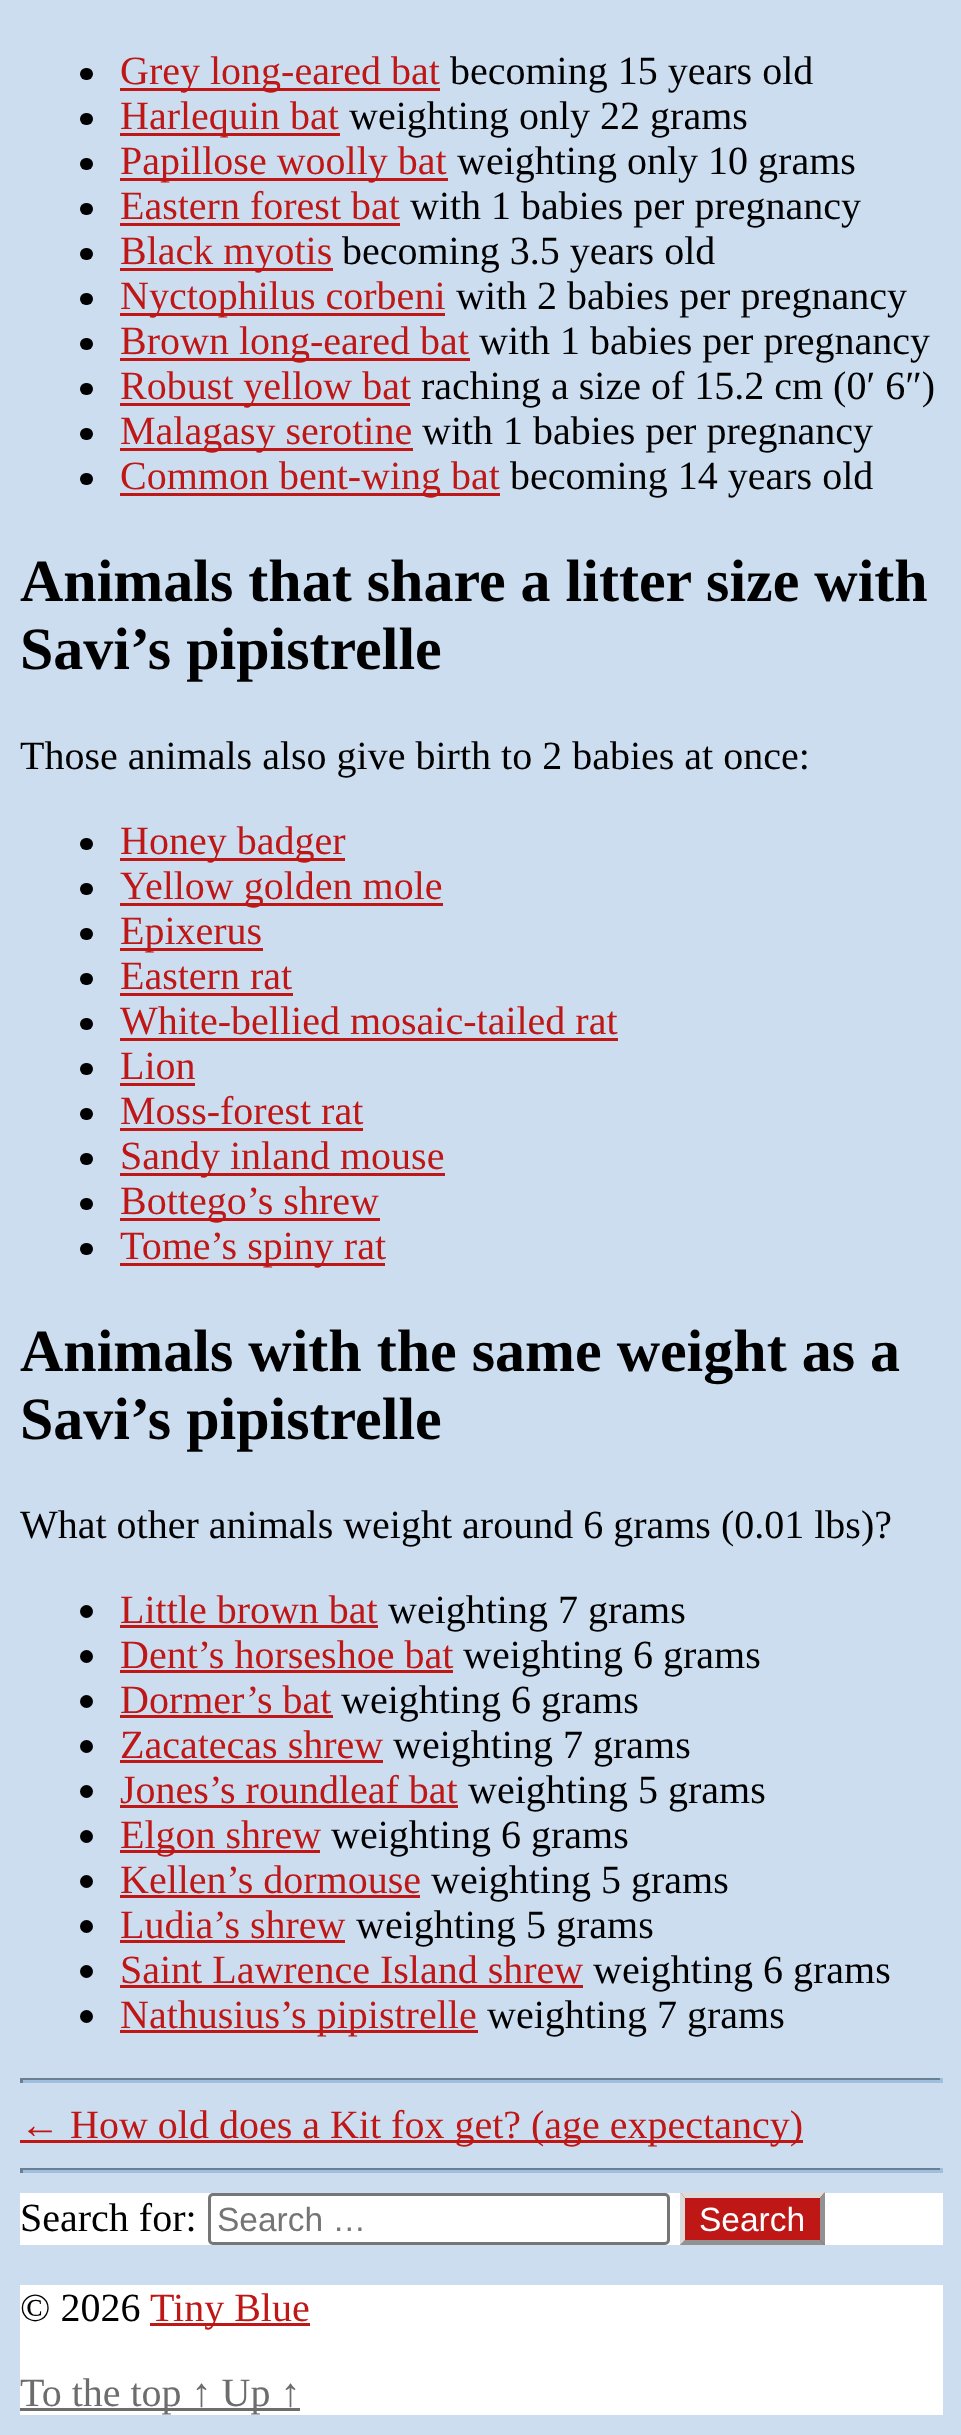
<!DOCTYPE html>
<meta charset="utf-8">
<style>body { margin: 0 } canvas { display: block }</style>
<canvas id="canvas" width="961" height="2435"></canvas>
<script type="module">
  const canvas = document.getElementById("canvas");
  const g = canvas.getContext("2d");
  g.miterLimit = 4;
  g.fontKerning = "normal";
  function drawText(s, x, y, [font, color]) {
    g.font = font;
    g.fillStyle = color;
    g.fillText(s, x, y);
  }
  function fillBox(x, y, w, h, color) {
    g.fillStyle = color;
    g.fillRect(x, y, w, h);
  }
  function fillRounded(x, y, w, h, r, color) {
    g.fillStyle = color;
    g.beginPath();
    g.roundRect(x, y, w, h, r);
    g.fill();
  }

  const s1 = ["40px Liberation Serif", "#BF1616"];
  const s2 = ["40px Liberation Serif", "#000000"];
  const s3 = ["bold 60px Liberation Serif", "#000000"];
  const s4 = ["33.5px Liberation Sans", "#757575"];
  const s5 = ["33.5px Liberation Sans", "#FFFFFF"];
  const s6 = ["40px Liberation Serif", "#6D6D6D"];

  fillBox(0, 0, 961, 2435, "#CBDDEF");
  fillRounded(80, 68, 13, 12, 6, "#000000");
  fillBox(120, 88, 320, 3, "#BF1616");
  drawText("Grey long-eared bat", 120, 84, s1);
  drawText("becoming 15 years old", 450, 84, s2);
  fillRounded(80, 113, 13, 12, 6, "#000000");
  fillBox(120, 133, 220, 3, "#BF1616");
  drawText("Harlequin bat", 120, 129, s1);
  drawText("weighting only 22 grams", 349, 129, s2);
  fillRounded(80, 158, 13, 12, 6, "#000000");
  fillBox(120, 178, 328, 3, "#BF1616");
  drawText("Papillose woolly bat", 120, 174, s1);
  drawText("weighting only 10 grams", 457, 174, s2);
  fillRounded(80, 203, 13, 12, 6, "#000000");
  drawText("Eastern forest bat", 120, 219, s1);
  fillBox(120, 223, 280, 3, "#BF1616");
  drawText("with 1 babies per pregnancy", 410, 219, s2);
  fillRounded(80, 248, 13, 12, 6, "#000000");
  fillBox(120, 268, 213, 3, "#BF1616");
  drawText("Black myotis", 120, 264, s1);
  drawText("becoming 3.5 years old", 342, 264, s2);
  fillRounded(80, 293, 13, 12, 6, "#000000");
  fillBox(120, 313, 325, 3, "#BF1616");
  drawText("Nyctophilus corbeni", 120, 309, s1);
  drawText("with 2 babies per pregnancy", 456, 309, s2);
  fillRounded(80, 338, 13, 12, 6, "#000000");
  fillBox(120, 358, 350, 3, "#BF1616");
  drawText("Brown long-eared bat", 120, 354, s1);
  drawText("with 1 babies per pregnancy", 479, 354, s2);
  fillRounded(80, 383, 13, 12, 6, "#000000");
  fillBox(120, 403, 290, 3, "#BF1616");
  drawText("Robust yellow bat", 120, 399, s1);
  drawText("raching a size of 15.2 cm (0′ 6″)", 421, 399, s2);
  fillRounded(80, 428, 13, 12, 6, "#000000");
  fillBox(120, 448, 293, 3, "#BF1616");
  drawText("Malagasy serotine", 120, 444, s1);
  drawText("with 1 babies per pregnancy", 422, 444, s2);
  fillRounded(80, 473, 13, 12, 6, "#000000");
  fillBox(120, 493, 380, 3, "#BF1616");
  drawText("Common bent-wing bat", 120, 489, s1);
  drawText("becoming 14 years old", 510, 489, s2);
  drawText("Animals that share a litter size with", 20, 601, s3);
  drawText("Savi’s pipistrelle", 20, 669, s3);
  drawText("Those animals also give birth to 2 babies at once:", 20, 769, s2);
  fillRounded(80, 838, 13, 12, 6, "#000000");
  fillBox(120, 858, 225, 3, "#BF1616");
  drawText("Honey badger", 120, 854, s1);
  fillRounded(80, 883, 13, 12, 6, "#000000");
  fillBox(120, 903, 323, 3, "#BF1616");
  drawText("Yellow golden mole", 120, 899, s1);
  fillRounded(80, 928, 13, 12, 6, "#000000");
  fillBox(120, 948, 143, 3, "#BF1616");
  drawText("Epixerus", 120, 944, s1);
  fillRounded(80, 973, 13, 12, 6, "#000000");
  drawText("Eastern rat", 120, 989, s1);
  fillBox(120, 993, 173, 3, "#BF1616");
  fillRounded(80, 1018, 13, 12, 6, "#000000");
  drawText("White-bellied mosaic-tailed rat", 120, 1034, s1);
  fillBox(120, 1038, 498, 3, "#BF1616");
  fillRounded(80, 1063, 13, 12, 6, "#000000");
  drawText("Lion", 120, 1079, s1);
  fillBox(120, 1083, 75, 3, "#BF1616");
  fillRounded(80, 1108, 13, 12, 6, "#000000");
  drawText("Moss-forest rat", 120, 1124, s1);
  fillBox(120, 1128, 243, 3, "#BF1616");
  fillRounded(80, 1153, 13, 12, 6, "#000000");
  fillBox(120, 1173, 325, 3, "#BF1616");
  drawText("Sandy inland mouse", 120, 1169, s1);
  fillRounded(80, 1198, 13, 12, 6, "#000000");
  fillBox(120, 1218, 260, 3, "#BF1616");
  drawText("Bottego’s shrew", 120, 1214, s1);
  fillRounded(80, 1243, 13, 12, 6, "#000000");
  fillBox(120, 1263, 265, 3, "#BF1616");
  drawText("Tome’s spiny rat", 120, 1259, s1);
  drawText("Animals with the same weight as a", 20, 1371, s3);
  drawText("Savi’s pipistrelle", 20, 1439, s3);
  drawText("What other animals weight around 6 grams (0.01 lbs)?", 20, 1538, s2);
  g.beginPath();
  g.arc(86.5, 1611.5, 6.5, 0, Math.PI * 2);
  g.fill();
  drawText("Little brown bat", 120, 1623, s1);
  fillBox(120, 1625, 258, 3, "#BF1616");
  drawText("weighting 7 grams", 388, 1623, s2);
  g.beginPath();
  g.arc(86.5, 1656.5, 6.5, 0, Math.PI * 2);
  g.fill();
  drawText("Dent’s horseshoe bat", 120, 1668, s1);
  fillBox(120, 1670, 333, 3, "#BF1616");
  drawText("weighting 6 grams", 463, 1668, s2);
  g.beginPath();
  g.arc(86.5, 1701.5, 6.5, 0, Math.PI * 2);
  g.fill();
  drawText("Dormer’s bat", 120, 1713, s1);
  fillBox(120, 1715, 213, 3, "#BF1616");
  drawText("weighting 6 grams", 341, 1713, s2);
  g.beginPath();
  g.arc(86.5, 1746.5, 6.5, 0, Math.PI * 2);
  g.fill();
  drawText("Zacatecas shrew", 120, 1758, s1);
  fillBox(120, 1760, 263, 3, "#BF1616");
  drawText("weighting 7 grams", 393, 1758, s2);
  g.beginPath();
  g.arc(86.5, 1791.5, 6.5, 0, Math.PI * 2);
  g.fill();
  drawText("Jones’s roundleaf bat", 120, 1803, s1);
  fillBox(120, 1805, 338, 3, "#BF1616");
  drawText("weighting 5 grams", 468, 1803, s2);
  g.beginPath();
  g.arc(86.5, 1836.5, 6.5, 0, Math.PI * 2);
  g.fill();
  fillBox(120, 1850, 200, 3, "#BF1616");
  drawText("Elgon shrew", 120, 1848, s1);
  drawText("weighting 6 grams", 331, 1848, s2);
  g.beginPath();
  g.arc(86.5, 1881.5, 6.5, 0, Math.PI * 2);
  g.fill();
  drawText("Kellen’s dormouse", 120, 1893, s1);
  fillBox(120, 1895, 300, 3, "#BF1616");
  drawText("weighting 5 grams", 431, 1893, s2);
  g.beginPath();
  g.arc(86.5, 1926.5, 6.5, 0, Math.PI * 2);
  g.fill();
  drawText("Ludia’s shrew", 120, 1938, s1);
  fillBox(120, 1940, 225, 3, "#BF1616");
  drawText("weighting 5 grams", 356, 1938, s2);
  g.beginPath();
  g.arc(86.5, 1971.5, 6.5, 0, Math.PI * 2);
  g.fill();
  drawText("Saint Lawrence Island shrew", 120, 1983, s1);
  fillBox(120, 1985, 463, 3, "#BF1616");
  drawText("weighting 6 grams", 593, 1983, s2);
  g.beginPath();
  g.arc(86.5, 2016.5, 6.5, 0, Math.PI * 2);
  g.fill();
  fillBox(120, 2030, 358, 3, "#BF1616");
  drawText("Nathusius’s pipistrelle", 120, 2028, s1);
  drawText("weighting 7 grams", 487, 2028, s2);
  fillBox(20, 2078, 923, 2, "#6B7F93");
  fillBox(940, 2078, 3, 5, "#A0BEDD");
  fillBox(20, 2080, 923, 3, "#A0BEDD");
  fillBox(20, 2078, 3, 5, "#6B7F93");
  fillBox(20, 2140, 783, 3, "#BF1616");
  drawText("← How old does a Kit fox get? (age expectancy)", 20, 2138, s1);
  fillBox(20, 2168, 923, 2, "#6B7F93");
  fillBox(940, 2168, 3, 5, "#A0BEDD");
  fillBox(20, 2170, 923, 3, "#A0BEDD");
  fillBox(20, 2168, 3, 5, "#6B7F93");
  fillBox(20, 2193, 923, 52, "#FFFFFF");
  drawText("Search for:", 20, 2231, s2);
  g.beginPath();
  g.roundRect(209.5, 2194.5, 459, 49, 3.5);
  g.strokeStyle = "#767676";
  g.lineWidth = 3;
  g.stroke();
  drawText("Search …", 217, 2231, s4);
  fillBox(680, 2193, 145, 52, "#BF1616");
  g.fillStyle = "#DBDBDB";
  g.beginPath();
  g.moveTo(680, 2192);
  g.lineTo(825, 2192);
  g.lineTo(820, 2198);
  g.lineTo(685, 2198);
  g.closePath();
  g.fill();
  g.fillStyle = "#929292";
  g.beginPath();
  g.moveTo(825, 2192);
  g.lineTo(825, 2245);
  g.lineTo(820, 2240);
  g.lineTo(820, 2198);
  g.closePath();
  g.fill();
  g.beginPath();
  g.moveTo(825, 2245);
  g.lineTo(680, 2245);
  g.lineTo(685, 2240);
  g.lineTo(820, 2240);
  g.closePath();
  g.fill();
  g.fillStyle = "#DBDBDB";
  g.beginPath();
  g.moveTo(680, 2245);
  g.lineTo(680, 2192);
  g.lineTo(685, 2198);
  g.lineTo(685, 2240);
  g.closePath();
  g.fill();
  drawText("Search", 699, 2231, s5);
  fillBox(20, 2285, 923, 130, "#FFFFFF");
  drawText("© 2026", 20, 2321, s2);
  fillBox(150, 2323, 160, 3, "#BF1616");
  drawText("Tiny Blue", 150, 2321, s1);
  fillBox(20, 2408, 280, 3, "#6D6D6D");
  drawText("To the top ↑ Up ↑", 20, 2406, s6);
</script>
